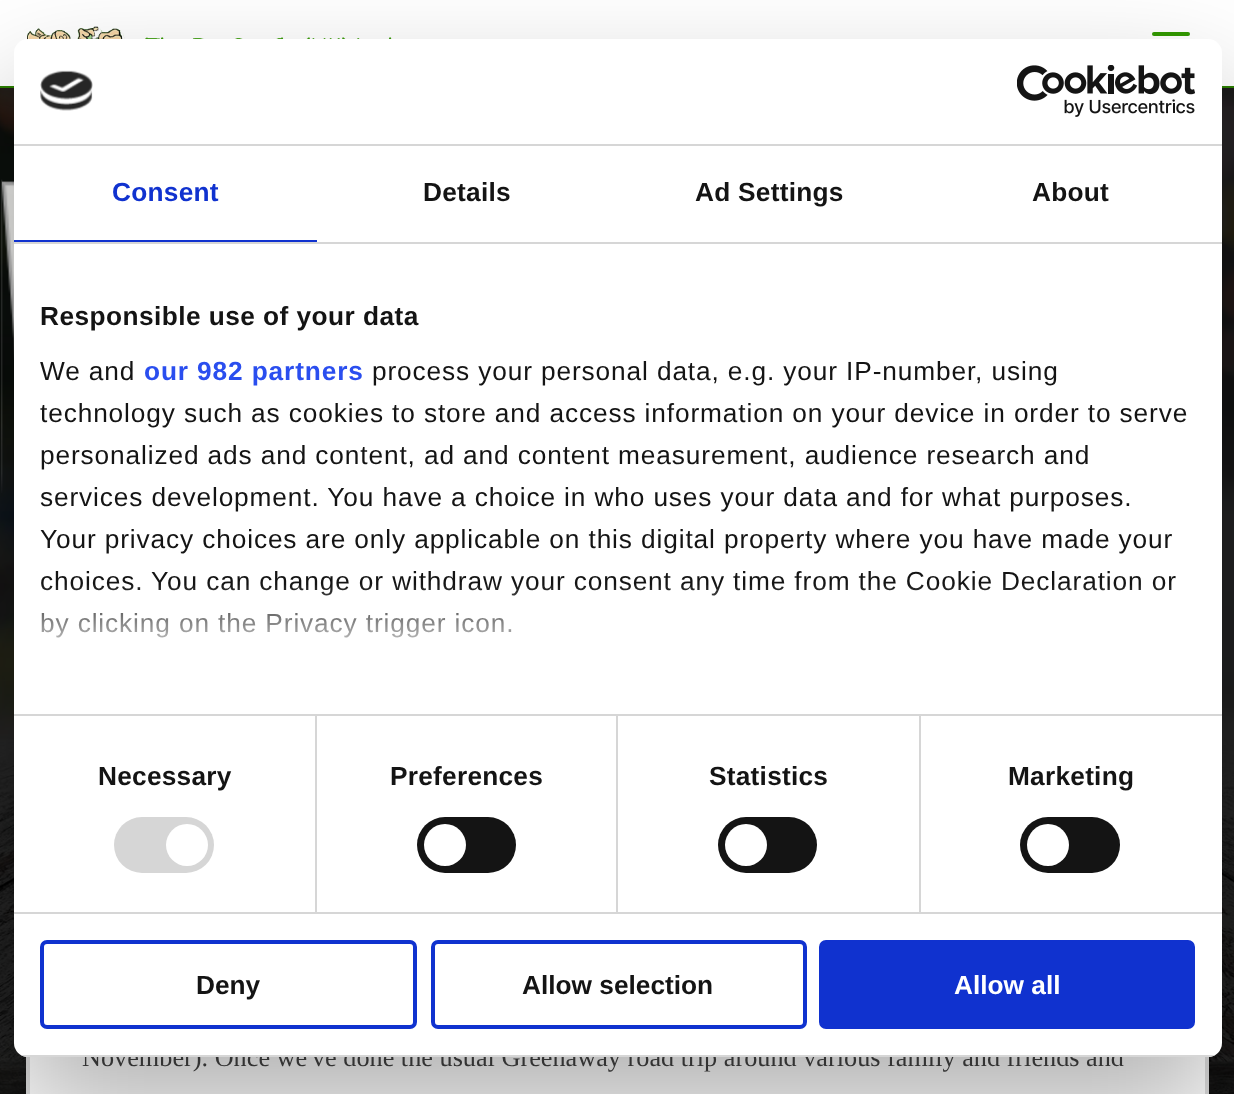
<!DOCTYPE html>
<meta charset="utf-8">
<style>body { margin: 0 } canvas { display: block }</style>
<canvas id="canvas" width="1234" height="1094"></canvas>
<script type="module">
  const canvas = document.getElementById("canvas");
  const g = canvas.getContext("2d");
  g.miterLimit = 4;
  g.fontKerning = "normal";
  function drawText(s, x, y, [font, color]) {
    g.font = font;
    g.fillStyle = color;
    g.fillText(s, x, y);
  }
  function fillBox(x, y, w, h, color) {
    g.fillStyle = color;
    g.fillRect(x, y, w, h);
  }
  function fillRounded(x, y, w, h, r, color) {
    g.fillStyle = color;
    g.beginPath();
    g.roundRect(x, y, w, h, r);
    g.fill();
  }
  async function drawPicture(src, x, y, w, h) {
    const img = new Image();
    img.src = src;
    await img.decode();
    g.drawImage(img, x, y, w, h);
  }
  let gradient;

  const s1 = ["26.25px Liberation Serif", "#333333"];
  const s2 = ["bold 26.25px Liberation Sans", "#1032CF"];
  const s3 = ["bold 26.25px Liberation Sans", "#141414"];
  const s4 = ["26.25px Liberation Sans", "#141414"];
  const s5 = ["bold 26.25px Liberation Sans", "#2A4EEF"];
  const s6 = ["bold 26.25px Liberation Sans", "#FFFFFF"];

  fillBox(0, 0, 1234, 1094, "#FFFFFF");
  await drawPicture("pic3.png", 0, 88, 1234, 1006);
  g.fillStyle = "rgba(0, 0, 0, 0.2)";
  g.filter = "blur(9px)";
  g.beginPath();
  g.rect(0, 0, 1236, 88);
  g.fill();
  g.filter = "none";
  fillBox(0, 0, 1234, 86, "#FFFFFF");
  fillBox(0, 86, 1234, 2, "#2B8000");
  await drawPicture("pic1.png", 27, 26, 98, 14);
  fillRounded(1152, 32, 38, 4, 2, "#329900");
  await drawPicture("pic2.png", 145, 37, 252, 2);
  gradient = g.createLinearGradient(618, 142, 618, 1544);
  gradient.addColorStop(0.85, "#FFFFFF");
  gradient.addColorStop(1, "#D6D6D6");
  g.fillStyle = gradient;
  g.fillRect(30, 1057, 1175, 37);
  g.strokeStyle = "#DDDDDD";
  g.lineWidth = 4;
  g.strokeRect(28, 140, 1179, 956);
  await drawPicture("pic6.png", 1, 179, 13, 314);
  g.fillStyle = "rgba(0, 0, 0, 0.3)";
  g.filter = "blur(59.5px)";
  g.beginPath();
  g.roundRect(14, 95, 1208, 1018, 14);
  g.fill();
  g.filter = "none";
  drawText("November). Once we've done the usual Greenaway road trip around various family and friends and", 82, 1066, s1);
  fillRounded(14, 39, 1208, 1018, 14, "#FFFFFF");
  fillBox(14, 144, 1208, 2, "#D6D6D6");
  await drawPicture("pic4.png", 40, 70, 53, 41);
  await drawPicture("pic5.png", 1017, 65, 178, 52);
  fillBox(14, 242, 1208, 2, "#D6D6D6");
  fillBox(14, 240, 303, 2, "#1032CF");
  g.letterSpacing = "0.25px";
  drawText("Consent", 112, 201, s2);
  drawText("Details", 423, 201, s3);
  drawText("Ad Settings", 695, 201, s3);
  drawText("About", 1032, 201, s3);
  fillBox(14, 714, 1208, 2, "#D6D6D6");
  g.letterSpacing = "0.45px";
  drawText("Responsible use of your data", 40, 325, s3);
  g.letterSpacing = "0.88px";
  drawText("We and", 40, 380, s4);
  drawText("our 982 partners", 144, 380, s5);
  drawText("process your personal data, e.g. your IP-number, using", 372, 380, s4);
  drawText("technology such as cookies to store and access information on your device in order to serve", 40, 422, s4);
  drawText("personalized ads and content, ad and content measurement, audience research and", 40, 464, s4);
  drawText("services development. You have a choice in who uses your data and for what purposes.", 40, 506, s4);
  drawText("Your privacy choices are only applicable on this digital property where you have made your", 40, 548, s4);
  drawText("choices. You can change or withdraw your consent any time from the Cookie Declaration or", 40, 590, s4);
  drawText("by clicking on the Privacy trigger icon.", 40, 632, s4);
  gradient = g.createLinearGradient(606, 714, 606, 583);
  gradient.addColorStop(0, "#FFFFFF");
  gradient.addColorStop(0.5, "rgba(255, 255, 255, 0.8)");
  gradient.addColorStop(1, "rgba(255, 255, 255, 0)");
  g.fillStyle = gradient;
  g.fillRect(41, 585, 1130, 53);
  fillBox(14, 912, 1208, 2, "#D6D6D6");
  fillBox(315, 716, 2, 196, "#D6D6D6");
  g.letterSpacing = "0.25px";
  drawText("Necessary", 98, 785, s3);
  fillRounded(114, 817, 100, 56, 28, "#D6D6D6");
  g.fillStyle = "#FFFFFF";
  g.beginPath();
  g.arc(187, 845, 21, 0, Math.PI * 2);
  g.fill();
  fillBox(616, 716, 2, 196, "#D6D6D6");
  drawText("Preferences", 390, 785, s3);
  fillRounded(417, 817, 99, 56, 28, "#141414");
  g.fillStyle = "#FFFFFF";
  g.beginPath();
  g.arc(445, 845, 21, 0, Math.PI * 2);
  g.fill();
  fillBox(919, 716, 2, 196, "#D6D6D6");
  drawText("Statistics", 709, 785, s3);
  fillRounded(718, 817, 99, 56, 28, "#141414");
  g.fillStyle = "#FFFFFF";
  g.beginPath();
  g.arc(746, 845, 21, 0, Math.PI * 2);
  g.fill();
  drawText("Marketing", 1008, 785, s3);
  fillRounded(1020, 817, 100, 56, 28, "#141414");
  g.fillStyle = "#FFFFFF";
  g.beginPath();
  g.arc(1048, 845, 21, 0, Math.PI * 2);
  g.fill();
  g.save();
  g.beginPath();
  g.roundRect(14, 39, 1208, 1018, 14);
  g.clip();
  fillBox(14, 1055, 1208, 2, "#D6D6D6");
  g.restore();
  g.beginPath();
  g.roundRect(42, 942, 373, 85, 5);
  g.strokeStyle = "#1032CF";
  g.stroke();
  g.letterSpacing = "0px";
  drawText("Deny", 196, 994, s3);
  g.beginPath();
  g.roundRect(433, 942, 372, 85, 5);
  g.stroke();
  drawText("Allow selection", 522, 994, s3);
  g.fillStyle = "#1032CF";
  g.beginPath();
  g.roundRect(821, 942, 372, 85, 5);
  g.fill();
  g.stroke();
  drawText("Allow all", 954, 994, s6);
</script>
